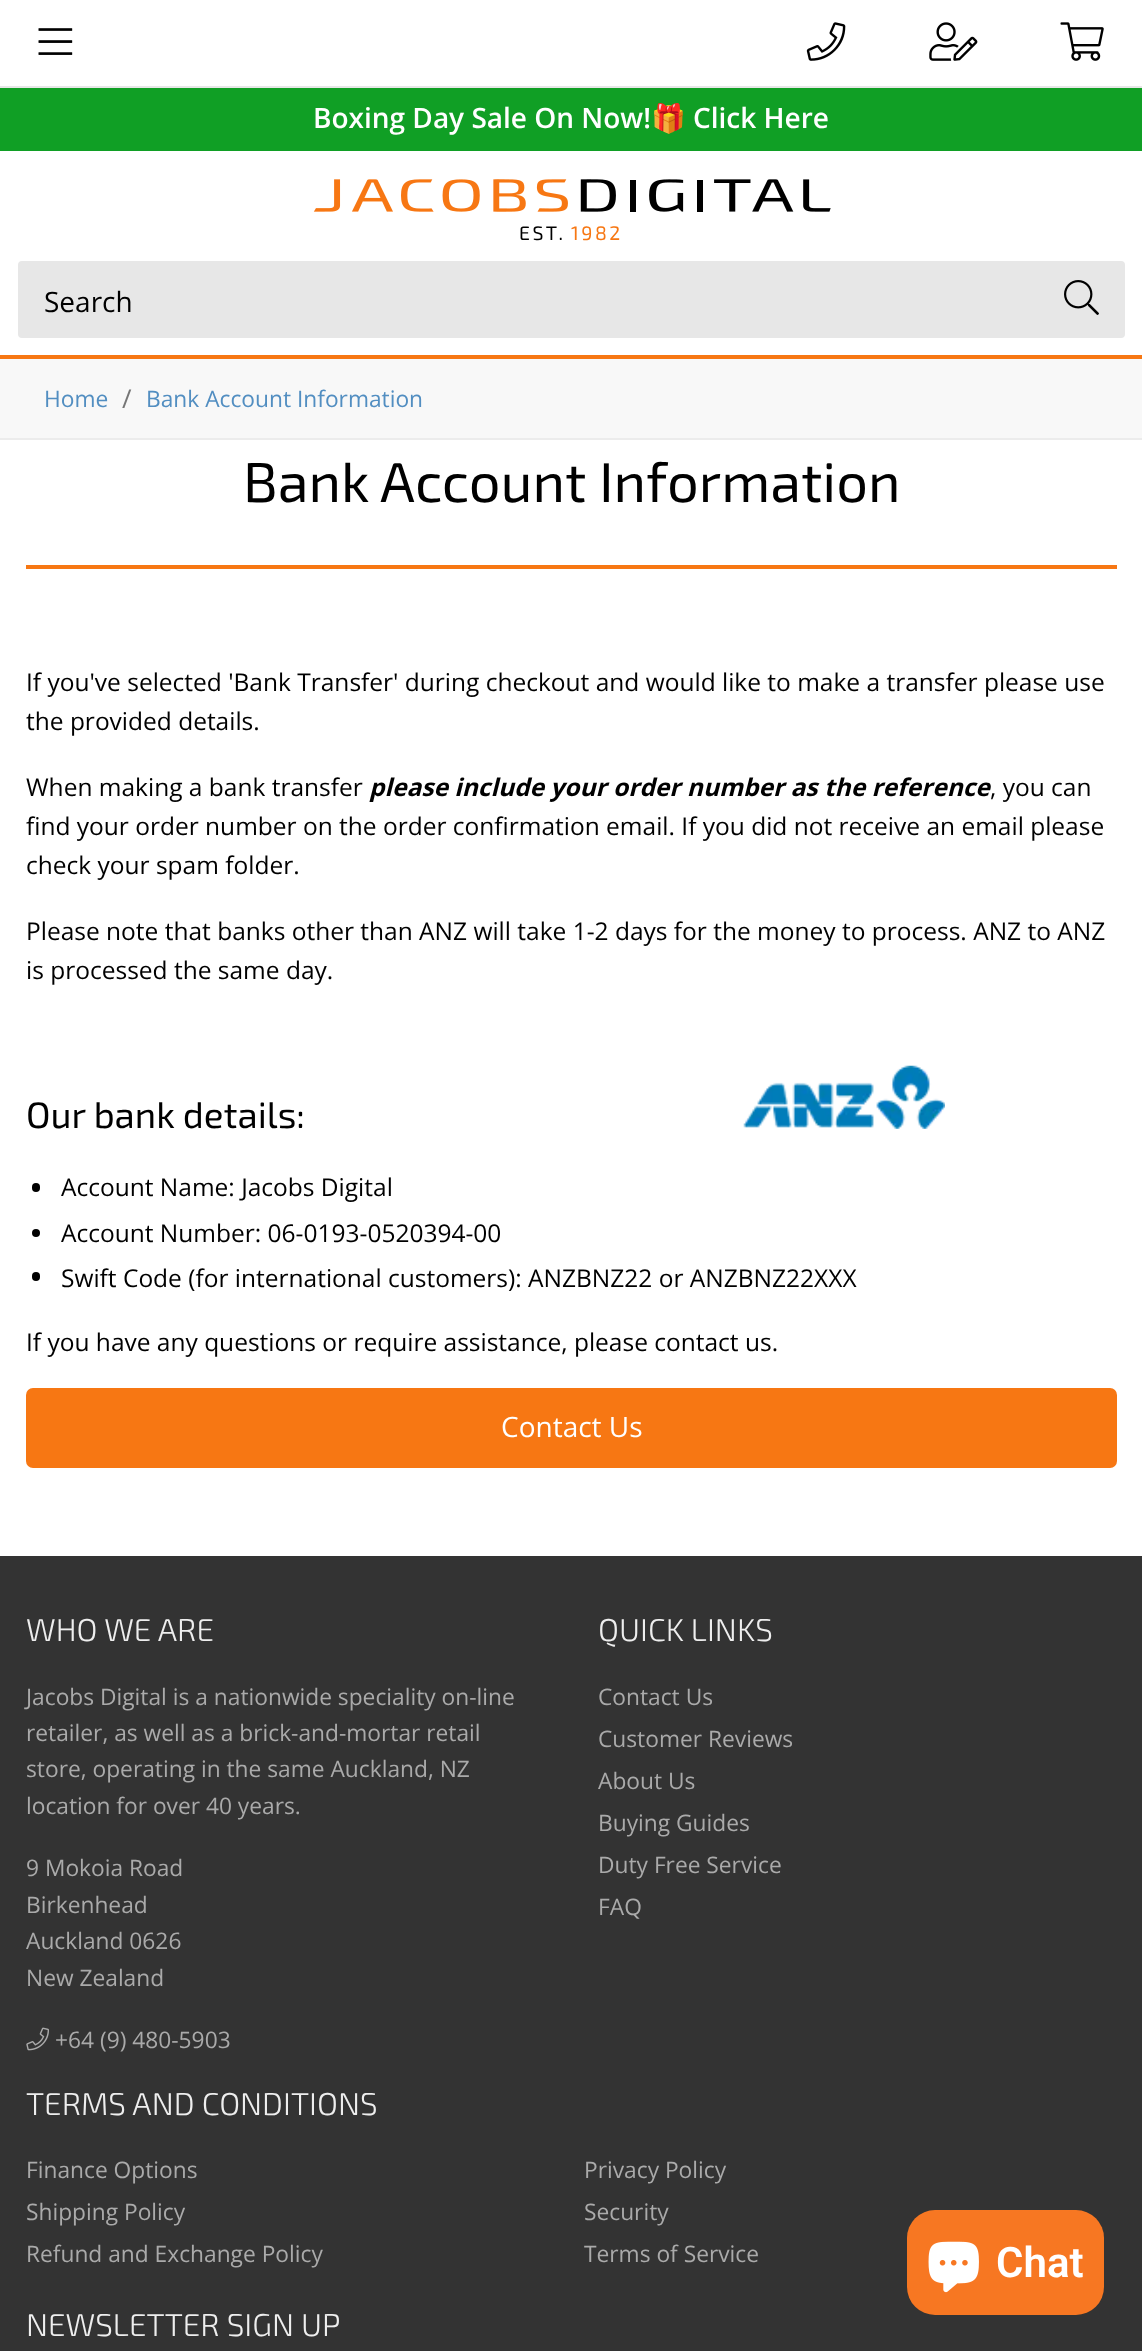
<!DOCTYPE html>
<meta charset="utf-8">
<style>body { margin: 0 } canvas { display: block }</style>
<canvas id="canvas" width="1142" height="2351"></canvas>
<script type="module">
  const canvas = document.getElementById("canvas");
  const g = canvas.getContext("2d");
  g.miterLimit = 4;
  g.fontKerning = "normal";
  function drawText(s, x, y, [font, color]) {
    g.font = font;
    g.fillStyle = color;
    g.fillText(s, x, y);
  }
  function fillBox(x, y, w, h, color) {
    g.fillStyle = color;
    g.fillRect(x, y, w, h);
  }
  function fillRounded(x, y, w, h, r, color) {
    g.fillStyle = color;
    g.beginPath();
    g.roundRect(x, y, w, h, r);
    g.fill();
  }
  async function drawPicture(src, x, y, w, h) {
    const img = new Image();
    img.src = src;
    await img.decode();
    g.drawImage(img, x, y, w, h);
  }

  const s1 = ["600 28px Open Sans", "#FFFFFF"];
  const s2 = ["bold 28px Noto Color Emoji", "#FFFFFF"];
  const s3 = ["19.5px 'Exo 2'", "#000000"];
  const s4 = ["19.5px 'Exo 2'", "#F77713"];
  const s5 = ["28px Open Sans", "#000000"];
  const s6 = ["22.75px Open Sans", "#528EC1"];
  const s7 = ["26px Open Sans", "#767676"];
  const s8 = ["56px 'Exo 2'", "#000000"];
  const s9 = ["24.5px Open Sans", "#000000"];
  const s10 = ["italic bold 24.5px Open Sans", "#000000"];
  const s11 = ["36.75px 'Exo 2'", "#000000"];
  const s12 = ["28px Open Sans", "#FFFFFF"];
  const s13 = ["300 31.5px 'Exo 2'", "#EEEEEE"];
  const s14 = ["22.75px Open Sans", "#AAAAAA"];
  const s15 = ["600 42px Roboto", "#FFFFFF"];

  fillBox(0, 0, 1142, 2351, "#FFFFFF");
  fillBox(0, 86, 1142, 2, "#E7E7E7");
  await drawPicture("pic1.png", 38, 28, 35, 27);
  await drawPicture("pic2.png", 806, 22, 40, 39);
  await drawPicture("pic3.png", 929, 22, 49, 39);
  await drawPicture("pic4.png", 1060, 22, 44, 39);
  fillBox(0, 88, 1142, 63, "#109F25");
  drawText("Boxing Day Sale On Now!", 313, 128, s1);
  drawText("🎁", 651, 128, s2);
  drawText("Click Here", 693, 128, s1);
  await drawPicture("pic5.png", 313, 179, 518, 33);
  g.letterSpacing = "2.5px";
  drawText("EST.", 519, 240, s3);
  drawText("1982", 571, 240, s4);
  fillBox(0, 355, 1142, 4, "#F77713");
  fillRounded(18, 261, 1107, 77, 4, "#E7E7E7");
  g.letterSpacing = "0px";
  drawText("Search", 44, 312, s5);
  await drawPicture("pic6.png", 1064, 280, 35, 35);
  fillBox(0, 359, 1142, 79, "#F8F8F8");
  fillBox(0, 438, 1142, 2, "#ECECEC");
  drawText("Home", 44, 407, s6);
  drawText("/", 122, 408, s7);
  drawText("Bank Account Information", 146, 407, s6);
  drawText("Bank Account Information", 243, 502, s8);
  fillBox(26, 565, 1091, 4, "#F77713");
  drawText("If you've selected 'Bank Transfer' during checkout and would like to make a transfer please use", 26, 691, s9);
  drawText("the provided details.", 26, 730, s9);
  drawText("When making a bank transfer", 26, 796, s9);
  drawText("please include your order number as the reference", 369, 796, s10);
  drawText(", you can", 990, 796, s9);
  drawText("find your order number on the order confirmation email. If you did not receive an email please", 26, 835, s9);
  drawText("check your spam folder.", 26, 874, s9);
  drawText("Please note that banks other than ANZ will take 1-2 days for the money to process. ANZ to ANZ", 26, 940, s9);
  drawText("is processed the same day.", 26, 979, s9);
  drawText("Our bank details:", 26, 1128, s11);
  await drawPicture("pic7.png", 743, 1065, 202, 64);
  fillRounded(32, 1183, 8, 9, 4, "#000000");
  drawText("Account Name: Jacobs Digital", 61, 1196, s9);
  g.beginPath();
  g.arc(36, 1233, 4, 0, Math.PI * 2);
  g.fill();
  drawText("Account Number: 06-0193-0520394-00", 61, 1242, s9);
  fillRounded(32, 1272, 8, 9, 4, "#000000");
  drawText("Swift Code (for international customers): ANZBNZ22 or ANZBNZ22XXX", 61, 1287, s9);
  drawText("If you have any questions or require assistance, please contact us.", 26, 1351, s9);
  fillRounded(26, 1388, 1091, 80, 7, "#F77713");
  drawText("Contact Us", 501, 1437, s12);
  fillBox(0, 1556, 1142, 795, "#333333");
  drawText("WHO WE ARE", 26, 1641, s13);
  drawText("Jacobs Digital is a nationwide speciality on-line", 26, 1705, s14);
  drawText("retailer, as well as a brick-and-mortar retail", 26, 1741, s14);
  drawText("store, operating in the same Auckland, NZ", 26, 1777, s14);
  drawText("location for over 40 years.", 26, 1814, s14);
  drawText("9 Mokoia Road", 26, 1876, s14);
  drawText("Birkenhead", 26, 1913, s14);
  drawText("Auckland 0626", 26, 1949, s14);
  drawText("New Zealand", 26, 1986, s14);
  await drawPicture("pic8.png", 26, 2027, 23, 24);
  drawText("+64 (9) 480-5903", 55, 2048, s14);
  drawText("QUICK LINKS", 598, 1641, s13);
  drawText("Contact Us", 598, 1705, s14);
  drawText("Customer Reviews", 598, 1747, s14);
  drawText("About Us", 598, 1789, s14);
  drawText("Buying Guides", 598, 1831, s14);
  drawText("Duty Free Service", 598, 1873, s14);
  drawText("FAQ", 598, 1915, s14);
  drawText("TERMS AND CONDITIONS", 26, 2115, s13);
  drawText("Finance Options", 26, 2178, s14);
  drawText("Privacy Policy", 584, 2178, s14);
  drawText("Shipping Policy", 26, 2220, s14);
  drawText("Security", 584, 2220, s14);
  drawText("Refund and Exchange Policy", 26, 2262, s14);
  drawText("Terms of Service", 584, 2262, s14);
  drawText("NEWSLETTER SIGN UP", 26, 2336, s13);
  fillRounded(907, 2210, 197, 105, 28, "#F77722");
  await drawPicture("pic9.png", 928, 2241, 51, 52);
  drawText("Chat", 996, 2277, s15);
</script>
